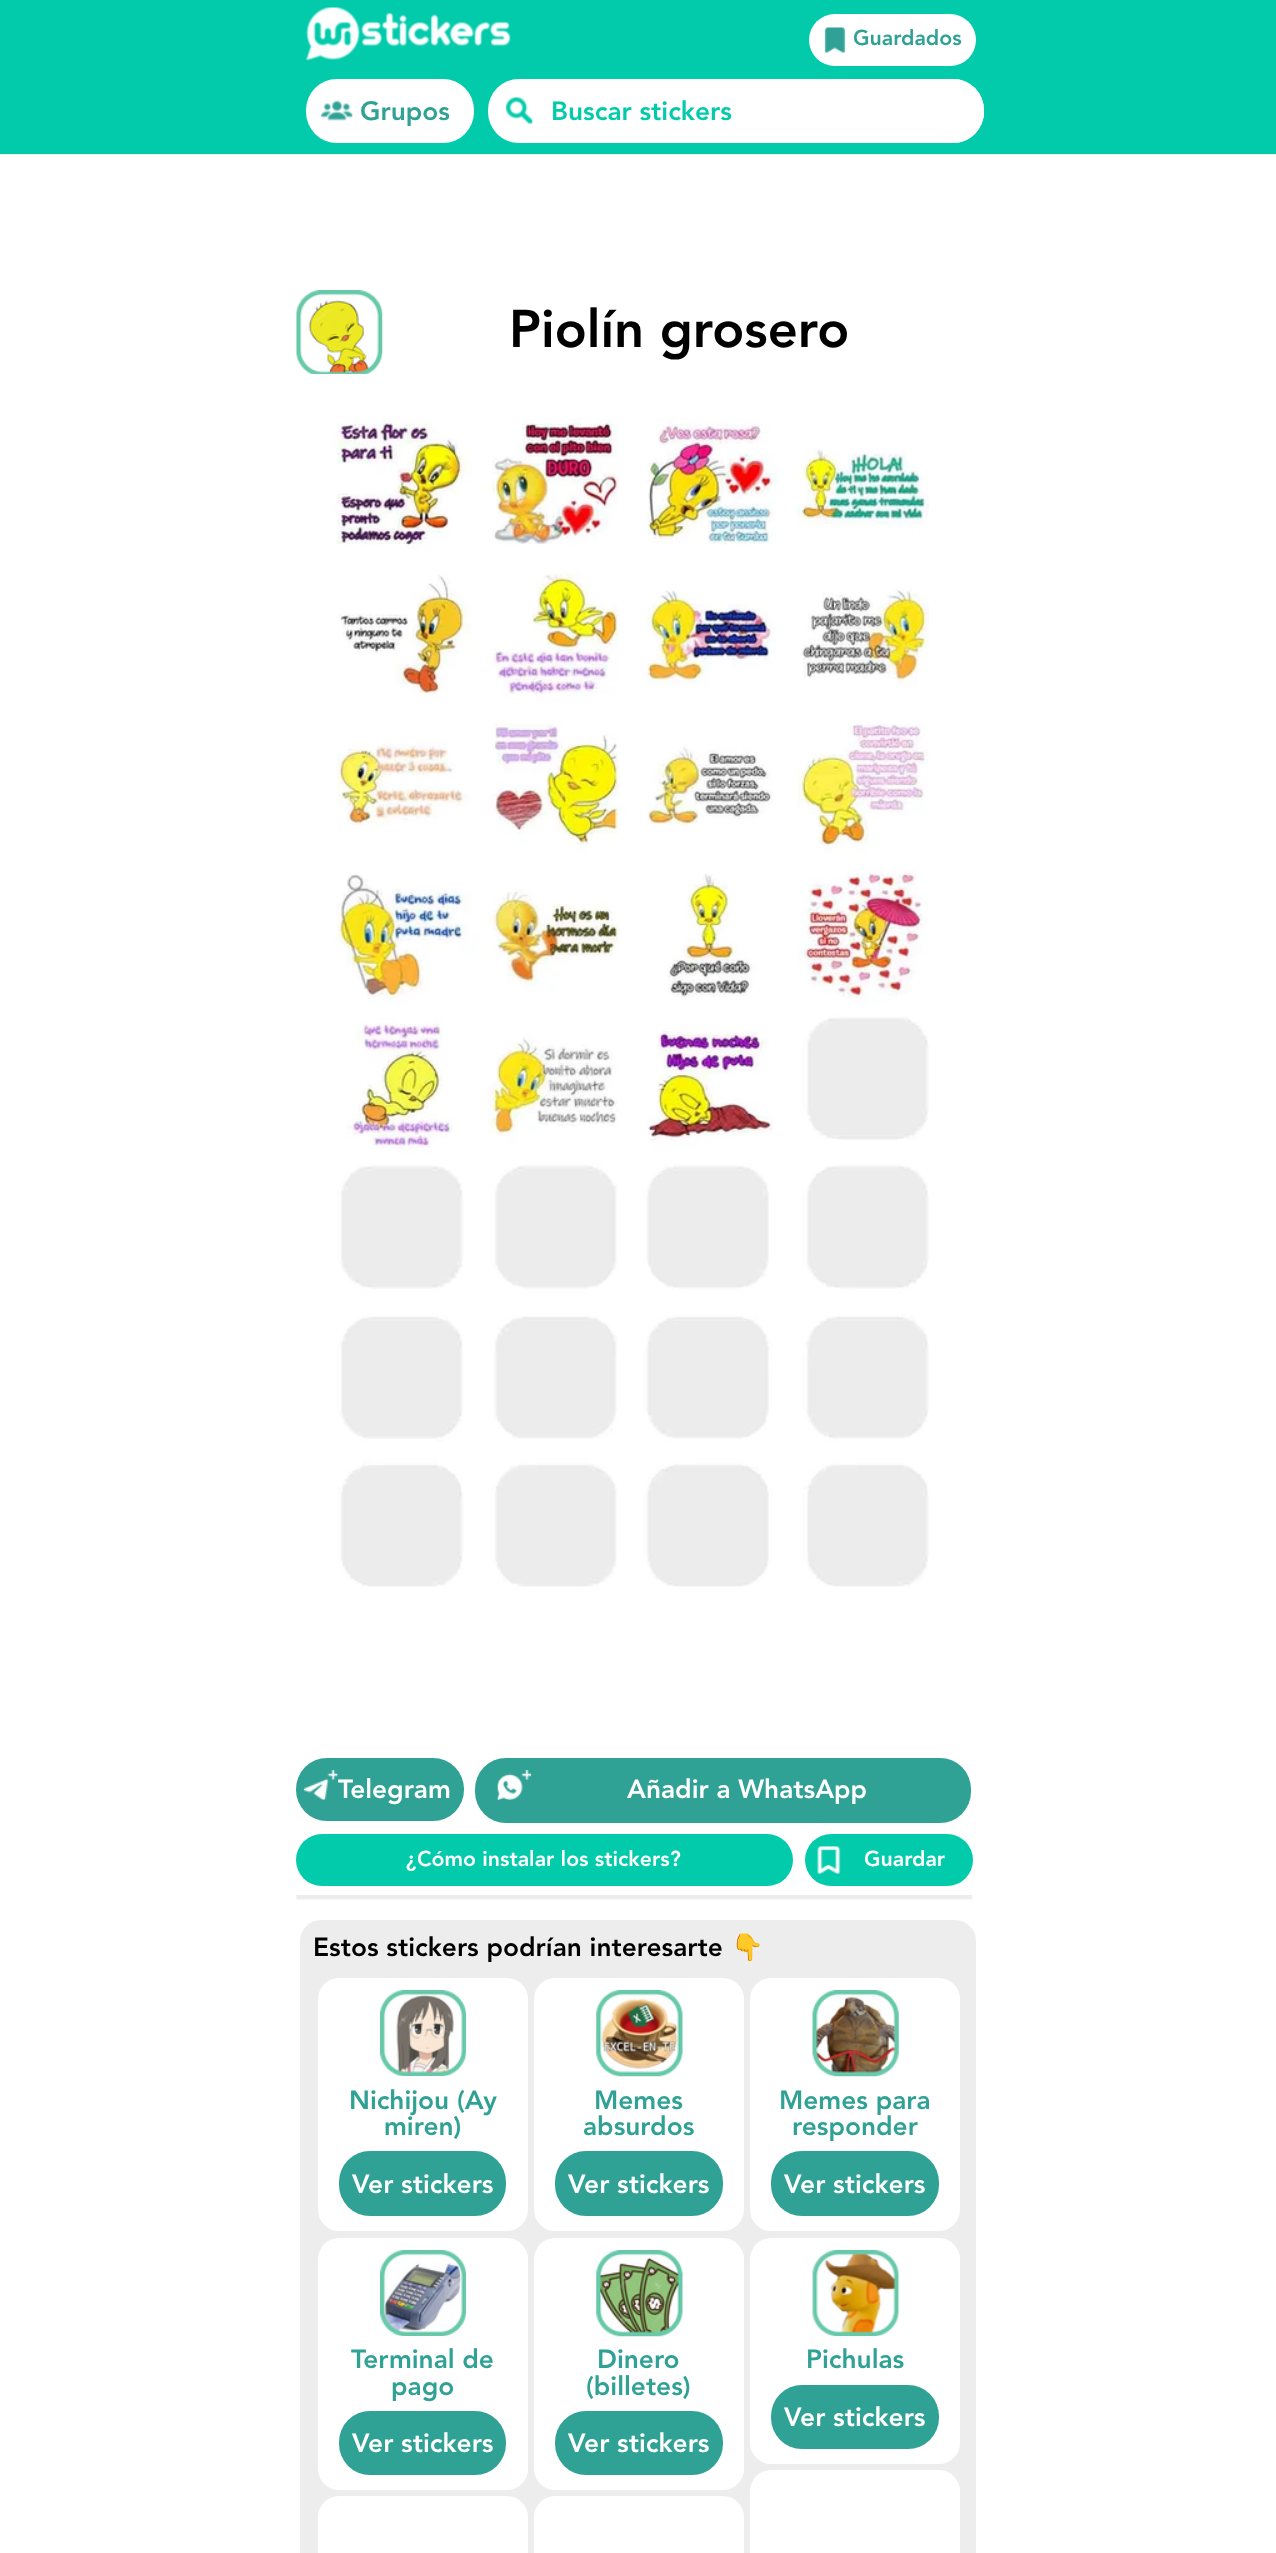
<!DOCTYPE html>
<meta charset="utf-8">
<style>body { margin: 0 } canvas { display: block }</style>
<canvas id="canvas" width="1276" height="2553"></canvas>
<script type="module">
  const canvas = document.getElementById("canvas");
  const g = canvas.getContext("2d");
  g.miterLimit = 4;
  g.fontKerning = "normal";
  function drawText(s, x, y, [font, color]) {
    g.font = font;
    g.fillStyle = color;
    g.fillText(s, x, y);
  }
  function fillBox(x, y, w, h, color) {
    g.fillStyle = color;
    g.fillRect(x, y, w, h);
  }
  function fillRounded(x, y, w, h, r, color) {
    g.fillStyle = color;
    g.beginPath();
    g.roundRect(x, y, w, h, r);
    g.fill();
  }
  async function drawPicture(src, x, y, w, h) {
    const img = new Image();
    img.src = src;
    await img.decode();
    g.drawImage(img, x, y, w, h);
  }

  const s1 = ["900 21.25px 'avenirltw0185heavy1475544'", "#30A195"];
  const s2 = ["900 26.25px 'avenirltw0185heavy1475544'", "#30A195"];
  const s3 = ["900 26.25px 'avenirltw0185heavy1475544'", "#02CBAB"];
  const s4 = ["900 52.5px 'avenirltw0185heavy1475544'", "#000000"];
  const s5 = ["900 26.25px 'avenirltw0185heavy1475544'", "#FFFFFF"];
  const s6 = ["900 21.25px 'avenirltw0185heavy1475544'", "#FFFFFF"];
  const s7 = ["900 26.25px 'avenirltw0185heavy1475544'", "#000000"];
  const s8 = ["bold 26.25px Noto Color Emoji", "#000000"];

  fillBox(0, 0, 1276, 2553, "#FFFFFF");
  fillBox(0, 0, 1276, 154, "#02CBAB");
  fillBox(0, 154, 1276, 1, "#EDEDED");
  await drawPicture("pic1.png", 306, 7, 205, 54);
  fillRounded(809, 14, 167, 52, 26, "#FFFFFF");
  await drawPicture("pic2.png", 824, 27, 22, 26);
  drawText("Guardados", 853, 45, s1);
  fillRounded(306, 79, 168, 64, 31, "#FFFFFF");
  await drawPicture("pic3.png", 321, 100, 32, 21);
  drawText("Grupos", 360, 120, s2);
  fillRounded(488, 79, 496, 64, 31, "#FFFFFF");
  await drawPicture("pic4.png", 506, 97, 27, 28);
  g.beginPath();
  g.roundRect(534, 79, 450, 64, [0, 31, 31, 0]);
  g.fill();
  drawText("Buscar stickers", 551, 120, s3);
  await drawPicture("pic5.png", 296, 290, 87, 84);
  drawText("Piolín grosero", 509, 347, s4);
  await drawPicture("pic6.png", 310, 373, 619, 1214);
  fillRounded(296, 1758, 168, 63, 31, "#30A195");
  await drawPicture("pic7.png", 303, 1770, 35, 30);
  drawText("Telegram", 338, 1798, s5);
  fillRounded(475, 1758, 496, 65, 31, "#30A195");
  await drawPicture("pic8.png", 497, 1770, 35, 30);
  drawText("Añadir a WhatsApp", 627, 1798, s5);
  fillRounded(296, 1834, 497, 52, 26, "#02CBAB");
  drawText("¿Cómo instalar los stickers?", 406, 1866, s6);
  fillRounded(805, 1834, 168, 52, 26, "#02CBAB");
  await drawPicture("pic9.png", 817, 1846, 24, 28);
  drawText("Guardar", 864, 1866, s6);
  await drawPicture("pic10.png", 296, 1895, 677, 5);
  fillRounded(300, 1920, 676, 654, 21, "#EDEDED");
  drawText("Estos stickers podrían interesarte", 313, 1956, s7);
  drawText("👇", 731, 1956, s8);
  fillRounded(318, 1978, 210, 253, 21, "#FFFFFF");
  await drawPicture("pic11.png", 380, 1990, 86, 86);
  drawText("Nichijou (Ay", 349, 2109, s2);
  drawText("miren)", 384, 2135, s2);
  fillRounded(339, 2151, 167, 65, 31, "#30A195");
  drawText("Ver stickers", 352, 2193, s5);
  fillRounded(318, 2238, 210, 252, 21, "#FFFFFF");
  await drawPicture("pic12.png", 380, 2250, 86, 86);
  drawText("Terminal de", 351, 2368, s2);
  drawText("pago", 391, 2395, s2);
  fillRounded(339, 2411, 167, 64, 31, "#30A195");
  drawText("Ver stickers", 352, 2452, s5);
  fillRounded(318, 2496, 210, 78, 21, "#FFFFFF");
  fillRounded(534, 1978, 210, 253, 21, "#FFFFFF");
  await drawPicture("pic13.png", 596, 1990, 87, 87);
  drawText("Memes", 594, 2109, s2);
  drawText("absurdos", 583, 2135, s2);
  fillRounded(555, 2151, 168, 65, 31, "#30A195");
  drawText("Ver stickers", 568, 2193, s5);
  fillRounded(534, 2238, 210, 252, 21, "#FFFFFF");
  await drawPicture("pic14.png", 596, 2250, 87, 87);
  drawText("Dinero", 597, 2368, s2);
  drawText("(billetes)", 586, 2395, s2);
  fillRounded(555, 2411, 168, 64, 31, "#30A195");
  drawText("Ver stickers", 568, 2452, s5);
  fillRounded(534, 2496, 210, 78, 21, "#FFFFFF");
  fillRounded(750, 1978, 210, 253, 21, "#FFFFFF");
  await drawPicture("pic15.png", 812, 1990, 87, 87);
  drawText("Memes para", 779, 2109, s2);
  drawText("responder", 792, 2135, s2);
  fillRounded(771, 2151, 168, 65, 31, "#30A195");
  drawText("Ver stickers", 784, 2193, s5);
  fillRounded(750, 2238, 210, 226, 21, "#FFFFFF");
  await drawPicture("pic16.png", 812, 2250, 88, 87);
  drawText("Pichulas", 806, 2368, s2);
  fillRounded(771, 2385, 168, 64, 31, "#30A195");
  drawText("Ver stickers", 784, 2426, s5);
  fillRounded(750, 2470, 210, 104, 21, "#FFFFFF");
</script>
